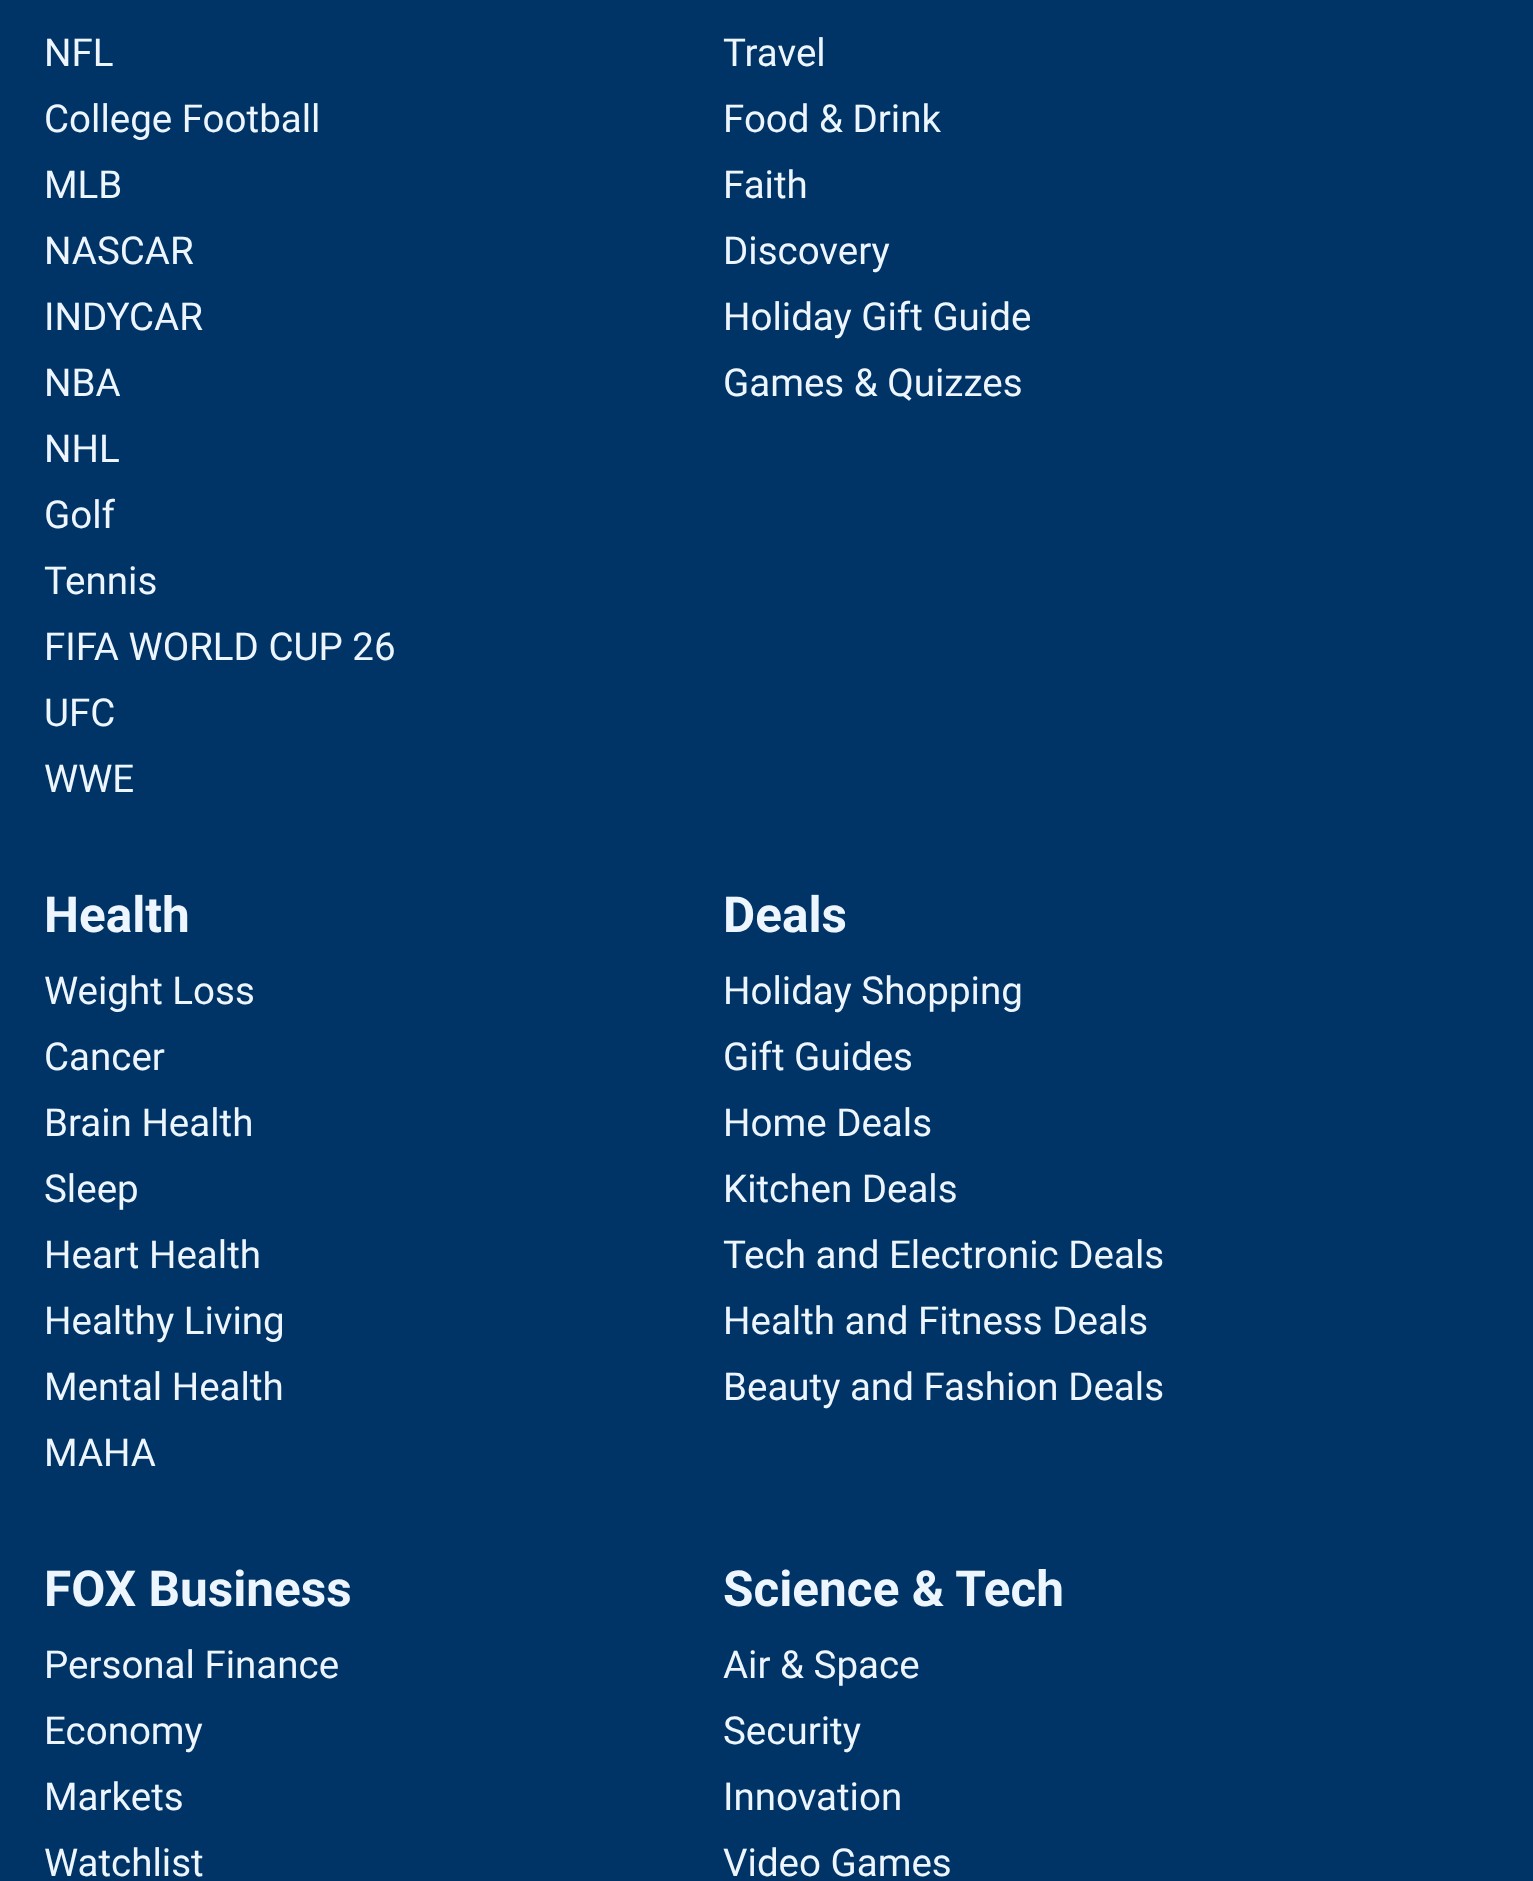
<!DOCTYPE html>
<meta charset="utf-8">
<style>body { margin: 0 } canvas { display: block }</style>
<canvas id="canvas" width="1533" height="1881"></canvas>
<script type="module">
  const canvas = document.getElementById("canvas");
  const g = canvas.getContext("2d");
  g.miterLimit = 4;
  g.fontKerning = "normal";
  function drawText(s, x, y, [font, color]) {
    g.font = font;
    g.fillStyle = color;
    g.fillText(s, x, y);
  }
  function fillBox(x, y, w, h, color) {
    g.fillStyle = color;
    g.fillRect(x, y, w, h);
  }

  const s1 = ["38.5px Roboto", "#EDF6FF"];
  const s2 = ["bold 49.5px Roboto", "#EDF6FF"];

  fillBox(0, 0, 1533, 1881, "#003366");
  drawText("NFL", 44, 66, s1);
  drawText("College Football", 44, 132, s1);
  drawText("MLB", 44, 198, s1);
  drawText("NASCAR", 44, 264, s1);
  drawText("INDYCAR", 44, 330, s1);
  drawText("NBA", 44, 396, s1);
  drawText("NHL", 44, 462, s1);
  drawText("Golf", 44, 528, s1);
  drawText("Tennis", 44, 594, s1);
  drawText("FIFA WORLD CUP 26", 44, 660, s1);
  drawText("UFC", 44, 726, s1);
  drawText("WWE", 44, 792, s1);
  drawText("Travel", 723, 66, s1);
  drawText("Food & Drink", 723, 132, s1);
  drawText("Faith", 723, 198, s1);
  drawText("Discovery", 723, 264, s1);
  drawText("Holiday Gift Guide", 723, 330, s1);
  drawText("Games & Quizzes", 723, 396, s1);
  drawText("Health", 44, 932, s2);
  drawText("Weight Loss", 44, 1004, s1);
  drawText("Cancer", 44, 1070, s1);
  drawText("Brain Health", 44, 1136, s1);
  drawText("Sleep", 44, 1202, s1);
  drawText("Heart Health", 44, 1268, s1);
  drawText("Healthy Living", 44, 1334, s1);
  drawText("Mental Health", 44, 1400, s1);
  drawText("MAHA", 44, 1466, s1);
  drawText("Deals", 723, 932, s2);
  drawText("Holiday Shopping", 723, 1004, s1);
  drawText("Gift Guides", 723, 1070, s1);
  drawText("Home Deals", 723, 1136, s1);
  drawText("Kitchen Deals", 723, 1202, s1);
  drawText("Tech and Electronic Deals", 723, 1268, s1);
  drawText("Health and Fitness Deals", 723, 1334, s1);
  drawText("Beauty and Fashion Deals", 723, 1400, s1);
  drawText("FOX Business", 44, 1606, s2);
  drawText("Personal Finance", 44, 1678, s1);
  drawText("Economy", 44, 1744, s1);
  drawText("Markets", 44, 1810, s1);
  drawText("Watchlist", 44, 1876, s1);
  drawText("Science & Tech", 723, 1606, s2);
  drawText("Air & Space", 723, 1678, s1);
  drawText("Security", 723, 1744, s1);
  drawText("Innovation", 723, 1810, s1);
  drawText("Video Games", 723, 1876, s1);
</script>
